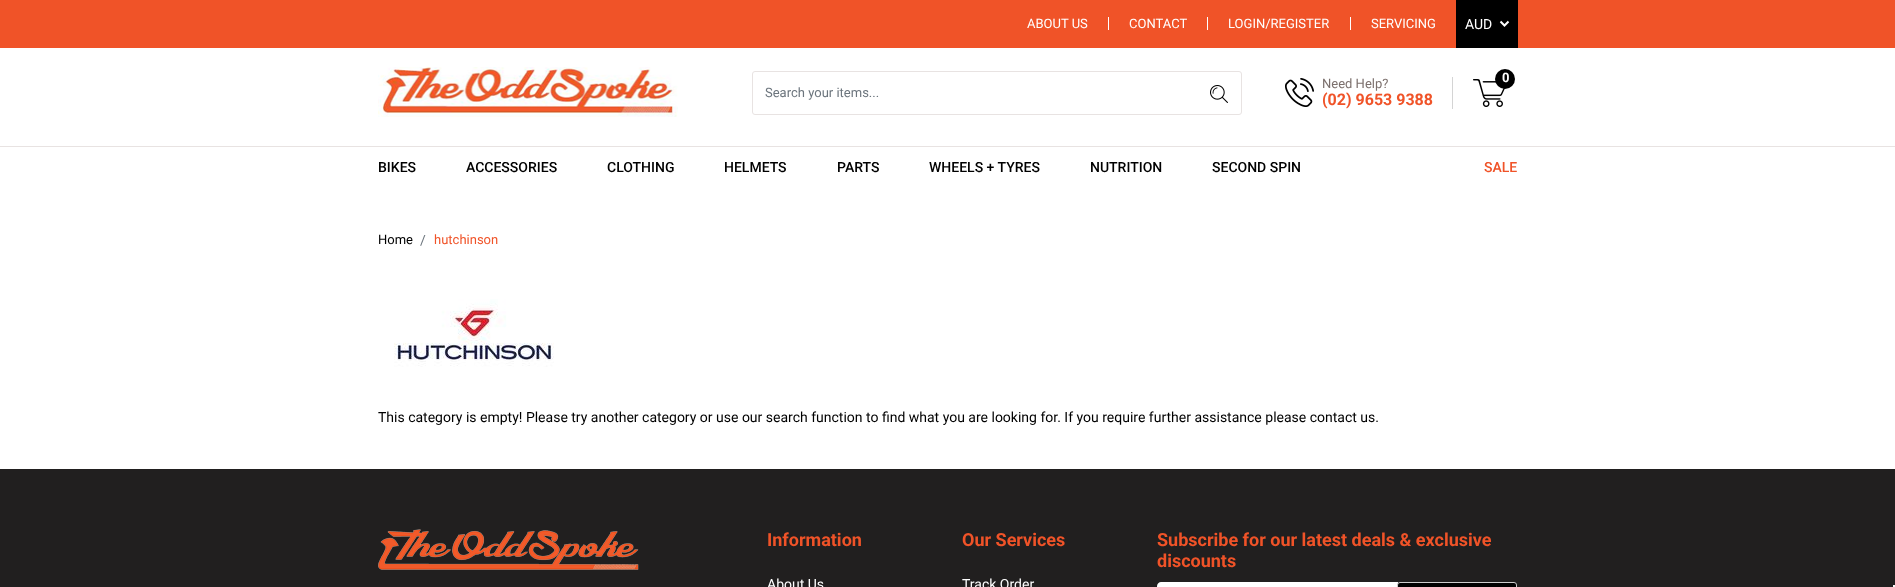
<!DOCTYPE html>
<meta charset="utf-8">
<style>body { margin: 0 } canvas { display: block }</style>
<canvas id="canvas" width="1895" height="587"></canvas>
<script type="module">
  const canvas = document.getElementById("canvas");
  const g = canvas.getContext("2d");
  g.miterLimit = 4;
  g.fontKerning = "normal";
  function drawText(s, x, y, [font, color]) {
    g.font = font;
    g.fillStyle = color;
    g.fillText(s, x, y);
  }
  function fillBox(x, y, w, h, color) {
    g.fillStyle = color;
    g.fillRect(x, y, w, h);
  }
  async function drawPicture(src, x, y, w, h) {
    const img = new Image();
    img.src = src;
    await img.decode();
    g.drawImage(img, x, y, w, h);
  }

  const s1 = ["13px Roboto", "#FFFFFF"];
  const s2 = ["14px Roboto", "#FFFFFF"];
  const s3 = ["13px Roboto", "#6C757D"];
  const s4 = ["13px Roboto", "#7C706D"];
  const s5 = ["bold 16px Roboto", "#F05328"];
  const s6 = ["bold 13px Roboto", "#FFFFFF"];
  const s7 = ["500 14px Roboto", "#000000"];
  const s8 = ["500 14px Roboto", "#F05328"];
  const s9 = ["13px Roboto", "#000000"];
  const s10 = ["14px Roboto", "#6C757D"];
  const s11 = ["13px Roboto", "#F05328"];
  const s12 = ["14px Roboto", "#000000"];
  const s13 = ["bold 18px Roboto", "#F05328"];

  fillBox(0, 0, 1895, 587, "#FFFFFF");
  fillBox(0, 0, 1895, 48, "#F05328");
  drawText("ABOUT US", 1027, 28, s1);
  fillBox(1108, 17, 1, 13, "#FFFFFF");
  drawText("CONTACT", 1129, 28, s1);
  fillBox(1207, 17, 1, 13, "#FFFFFF");
  drawText("LOGIN/REGISTER", 1228, 28, s1);
  fillBox(1350, 17, 1, 13, "#FFFFFF");
  drawText("SERVICING", 1371, 28, s1);
  fillBox(1456, 0, 62, 48, "#000000");
  g.beginPath();
  g.moveTo(1500.5, 21.5);
  g.lineTo(1504.5, 25.5);
  g.lineTo(1508.5, 21.5);
  g.strokeStyle = "#FFFFFF";
  g.lineWidth = 2;
  g.stroke();
  drawText("AUD", 1465, 29, s2);
  fillBox(0, 146, 1895, 1, "#E8E3E2");
  await drawPicture("pic1.png", 378, 67, 300, 50);
  g.beginPath();
  g.roundRect(752.5, 71.5, 489, 43, 2.5);
  g.strokeStyle = "#E8E3E2";
  g.lineWidth = 1;
  g.stroke();
  drawText("Search your items...", 765, 97, s3);
  await drawPicture("pic2.png", 1210, 85, 18, 18);
  fillBox(1452, 77, 1, 32, "#D4D4D4");
  await drawPicture("pic3.png", 1285, 78, 29, 29);
  drawText("Need Help?", 1322, 88, s4);
  drawText("(02) 9653 9388", 1322, 105, s5);
  await drawPicture("pic4.png", 1473, 79, 32, 28);
  g.fillStyle = "#000000";
  g.beginPath();
  g.arc(1505, 79, 10, 0, Math.PI * 2);
  g.fill();
  drawText("0", 1502, 82, s6);
  drawText("BIKES", 378, 172, s7);
  drawText("ACCESSORIES", 466, 172, s7);
  drawText("CLOTHING", 607, 172, s7);
  drawText("HELMETS", 724, 172, s7);
  drawText("PARTS", 837, 172, s7);
  drawText("WHEELS + TYRES", 929, 172, s7);
  drawText("NUTRITION", 1090, 172, s7);
  drawText("SECOND SPIN", 1212, 172, s7);
  drawText("SALE", 1484, 172, s8);
  drawText("Home", 378, 244, s9);
  drawText("/", 420, 245, s10);
  drawText("hutchinson", 434, 244, s11);
  await drawPicture("pic5.png", 394, 299, 160, 68);
  drawText("This category is empty! Please try another category or use our search function to find what you are looking for. If you require further assistance please contact us.", 378, 422, s12);
  fillBox(0, 469, 1895, 118, "#211F1F");
  await drawPicture("pic6.png", 378, 529, 261, 41);
  drawText("Information", 767, 546, s13);
  drawText("About Us", 767, 589, s2);
  drawText("Our Services", 962, 546, s13);
  drawText("Track Order", 962, 589, s2);
  drawText("Subscribe for our latest deals & exclusive", 1157, 546, s13);
  drawText("discounts", 1157, 567, s13);
  g.fillStyle = "#FFFFFF";
  g.beginPath();
  g.moveTo(1161, 582);
  g.lineTo(1398, 582);
  g.lineTo(1398, 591);
  g.lineTo(1161, 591);
  g.bezierCurveTo(1159, 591, 1157, 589, 1157, 587);
  g.lineTo(1157, 586);
  g.bezierCurveTo(1157, 584, 1159, 582, 1161, 582);
  g.closePath();
  g.fill();
  g.fillStyle = "#000000";
  g.beginPath();
  g.roundRect(1397.5, 582.5, 119, 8, 2.5);
  g.fill();
  g.strokeStyle = "#CCCCCC";
  g.stroke();
  fillBox(1893, 585, 2, 2, "#F5F5F5");
</script>
